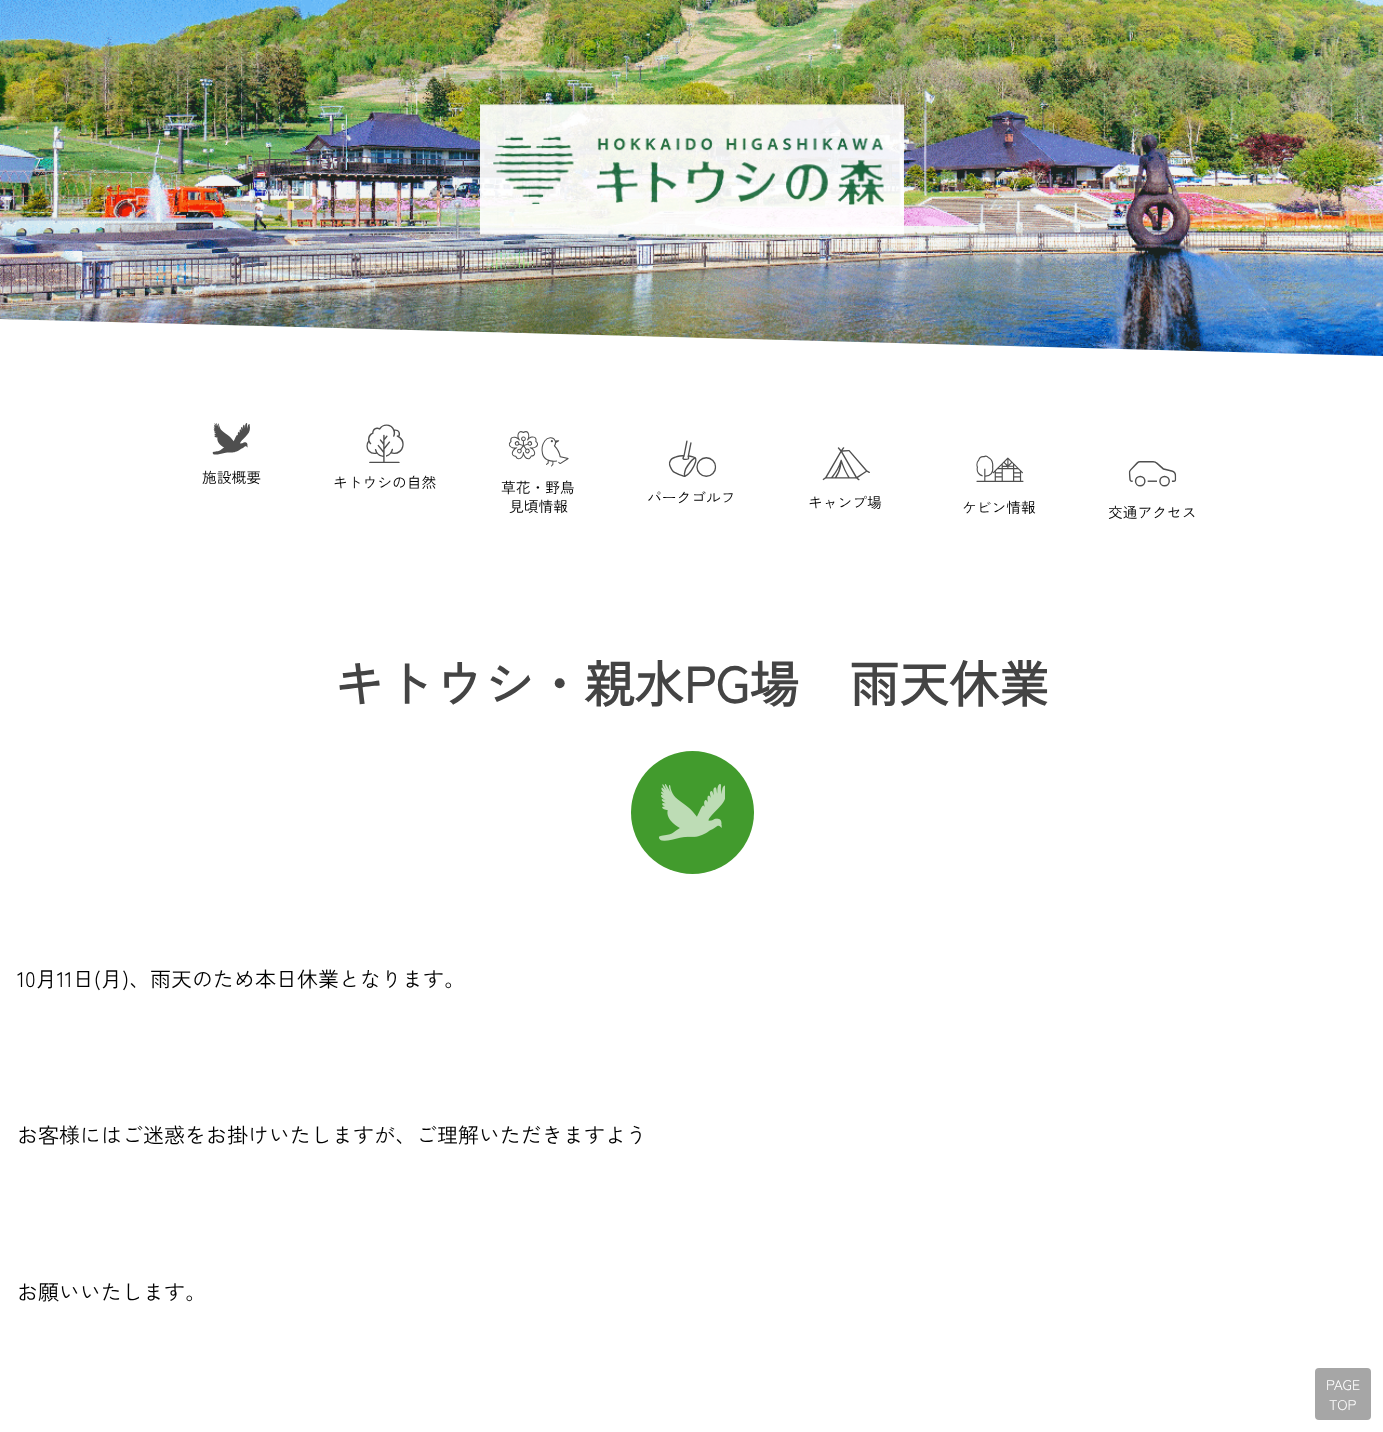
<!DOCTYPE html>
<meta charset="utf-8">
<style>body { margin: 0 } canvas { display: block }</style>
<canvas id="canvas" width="1383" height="1432"></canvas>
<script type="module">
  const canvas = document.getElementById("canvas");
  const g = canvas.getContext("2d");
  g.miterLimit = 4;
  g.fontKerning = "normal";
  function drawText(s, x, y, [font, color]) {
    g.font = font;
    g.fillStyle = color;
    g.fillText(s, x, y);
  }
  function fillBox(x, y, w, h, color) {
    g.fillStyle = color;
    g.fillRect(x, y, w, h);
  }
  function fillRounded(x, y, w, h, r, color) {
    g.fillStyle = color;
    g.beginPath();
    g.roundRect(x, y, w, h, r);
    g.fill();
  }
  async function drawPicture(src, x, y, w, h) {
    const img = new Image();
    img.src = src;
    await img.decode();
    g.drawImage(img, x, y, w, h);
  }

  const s1 = ["14.75px Zen Kaku Gothic New", "#000000"];
  const s2 = ["bold 50px Zen Kaku Gothic New", "#444444"];
  const s3 = ["21px Zen Kaku Gothic New", "#000000"];
  const s4 = ["14px Zen Kaku Gothic New", "#FFFFFF"];

  fillBox(0, 0, 1383, 1432, "#FFFFFF");
  await drawPicture("pic1.png", 0, 0, 1383, 356);
  await drawPicture("pic2.png", 480, 104, 424, 131);
  g.beginPath();
  g.moveTo(0, 319);
  g.lineTo(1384, 356);
  g.lineTo(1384, 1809);
  g.lineTo(0, 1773);
  g.closePath();
  g.fill();
  await drawPicture("pic3.png", 212, 423, 38, 32);
  drawText("施設概要", 202, 483, s1);
  await drawPicture("pic4.png", 366, 424, 38, 39);
  drawText("キトウシの自然", 333, 488, s1);
  await drawPicture("pic5.png", 508, 431, 61, 36);
  drawText("草花・野鳥", 501, 493, s1);
  drawText("見頃情報", 509, 512, s1);
  await drawPicture("pic6.png", 668, 440, 49, 37);
  drawText("パークゴルフ", 647, 503, s1);
  await drawPicture("pic7.png", 822, 447, 48, 34);
  drawText("キャンプ場", 808, 508, s1);
  await drawPicture("pic8.png", 976, 455, 48, 27);
  drawText("ケビン情報", 962, 513, s1);
  await drawPicture("pic9.png", 1128, 461, 49, 26);
  drawText("交通アクセス", 1108, 518, s1);
  drawText("キトウシ・親水PG場　雨天休業", 334, 703, s2);
  g.fillStyle = "#429B2D";
  g.beginPath();
  g.arc(692.5, 812.5, 61.5, 0, Math.PI * 2);
  g.fill();
  await drawPicture("pic10.png", 659, 784, 66, 57);
  drawText("10月11日(月)、雨天のため本日休業となります。", 17, 987, s3);
  drawText("お客様にはご迷惑をお掛けいたしますが、ご理解いただきますよう", 17, 1143, s3);
  drawText("お願いいたします。", 17, 1300, s3);
  fillRounded(1315, 1368, 56, 52, 4, "#A6A6A6");
  drawText("PAGE", 1326, 1390, s4);
  drawText("TOP", 1329, 1410, s4);
</script>
